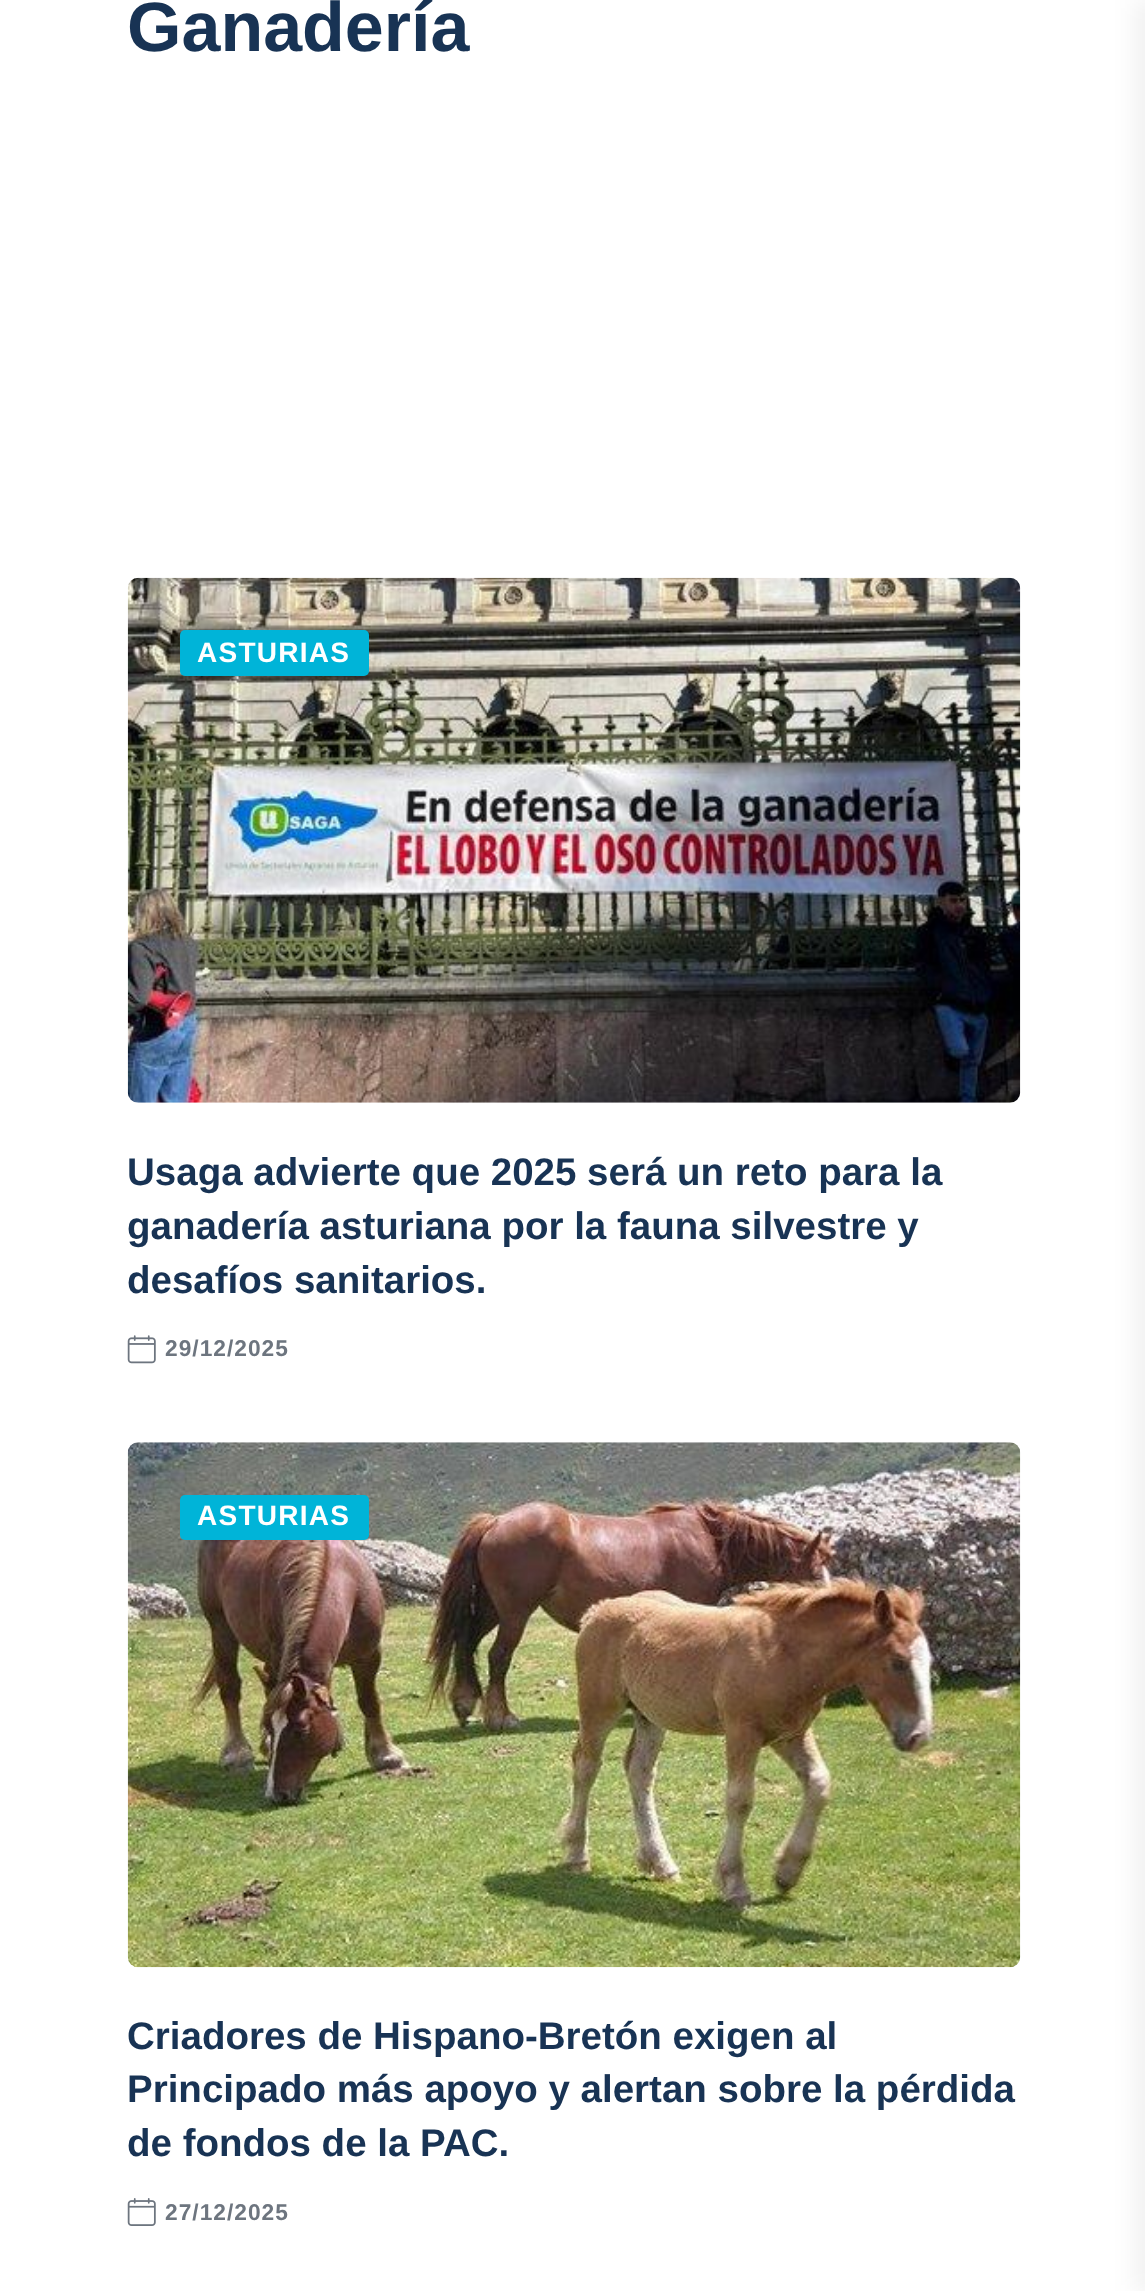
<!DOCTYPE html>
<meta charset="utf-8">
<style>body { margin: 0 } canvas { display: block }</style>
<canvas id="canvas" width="1145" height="2291"></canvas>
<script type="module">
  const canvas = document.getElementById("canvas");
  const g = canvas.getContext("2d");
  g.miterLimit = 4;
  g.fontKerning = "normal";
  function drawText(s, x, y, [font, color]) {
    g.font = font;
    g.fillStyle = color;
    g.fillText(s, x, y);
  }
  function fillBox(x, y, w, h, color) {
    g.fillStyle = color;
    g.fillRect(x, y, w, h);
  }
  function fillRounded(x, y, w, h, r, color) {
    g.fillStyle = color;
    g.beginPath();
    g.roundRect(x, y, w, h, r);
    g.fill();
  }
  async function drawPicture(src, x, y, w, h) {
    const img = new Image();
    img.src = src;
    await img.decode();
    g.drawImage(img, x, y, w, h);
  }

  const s1 = ["bold 70px Liberation Sans", "#183354"];
  const s2 = ["bold 28px Liberation Sans", "#FFFFFF"];
  const s3 = ["bold 38.5px Liberation Sans", "#183354"];
  const s4 = ["bold 22.75px Liberation Sans", "#6D757F"];

  fillBox(0, 0, 1145, 2291, "#FFFFFF");
  drawText("Ganadería", 127, 51, s1);
  await drawPicture("pic1.png", 127, 577, 894, 526);
  fillRounded(180, 630, 189, 46, 5, "#00B4D8");
  g.letterSpacing = "1.25px";
  drawText("ASTURIAS", 197, 662, s2);
  g.letterSpacing = "0px";
  drawText("Usaga advierte que 2025 será un reto para la", 127, 1185, s3);
  drawText("ganadería asturiana por la fauna silvestre y", 127, 1239, s3);
  drawText("desafíos sanitarios.", 127, 1293, s3);
  await drawPicture("pic2.png", 127, 1335, 29, 29);
  g.letterSpacing = "1px";
  drawText("29/12/2025", 165, 1356, s4);
  await drawPicture("pic3.png", 127, 1442, 894, 526);
  fillRounded(180, 1495, 189, 45, 5, "#00B4D8");
  g.letterSpacing = "1.25px";
  drawText("ASTURIAS", 197, 1525, s2);
  g.letterSpacing = "0px";
  drawText("Criadores de Hispano-Bretón exigen al", 127, 2049, s3);
  drawText("Principado más apoyo y alertan sobre la pérdida", 127, 2102, s3);
  drawText("de fondos de la PAC.", 127, 2156, s3);
  await drawPicture("pic4.png", 127, 2198, 29, 28);
  g.letterSpacing = "1px";
  drawText("27/12/2025", 165, 2220, s4);
  g.fillStyle = "rgba(0, 0, 0, 0.06)";
  g.filter = "blur(12px)";
  g.beginPath();
  g.rect(1136, 0, 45, 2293);
  g.fill();
  g.filter = "none";
</script>
